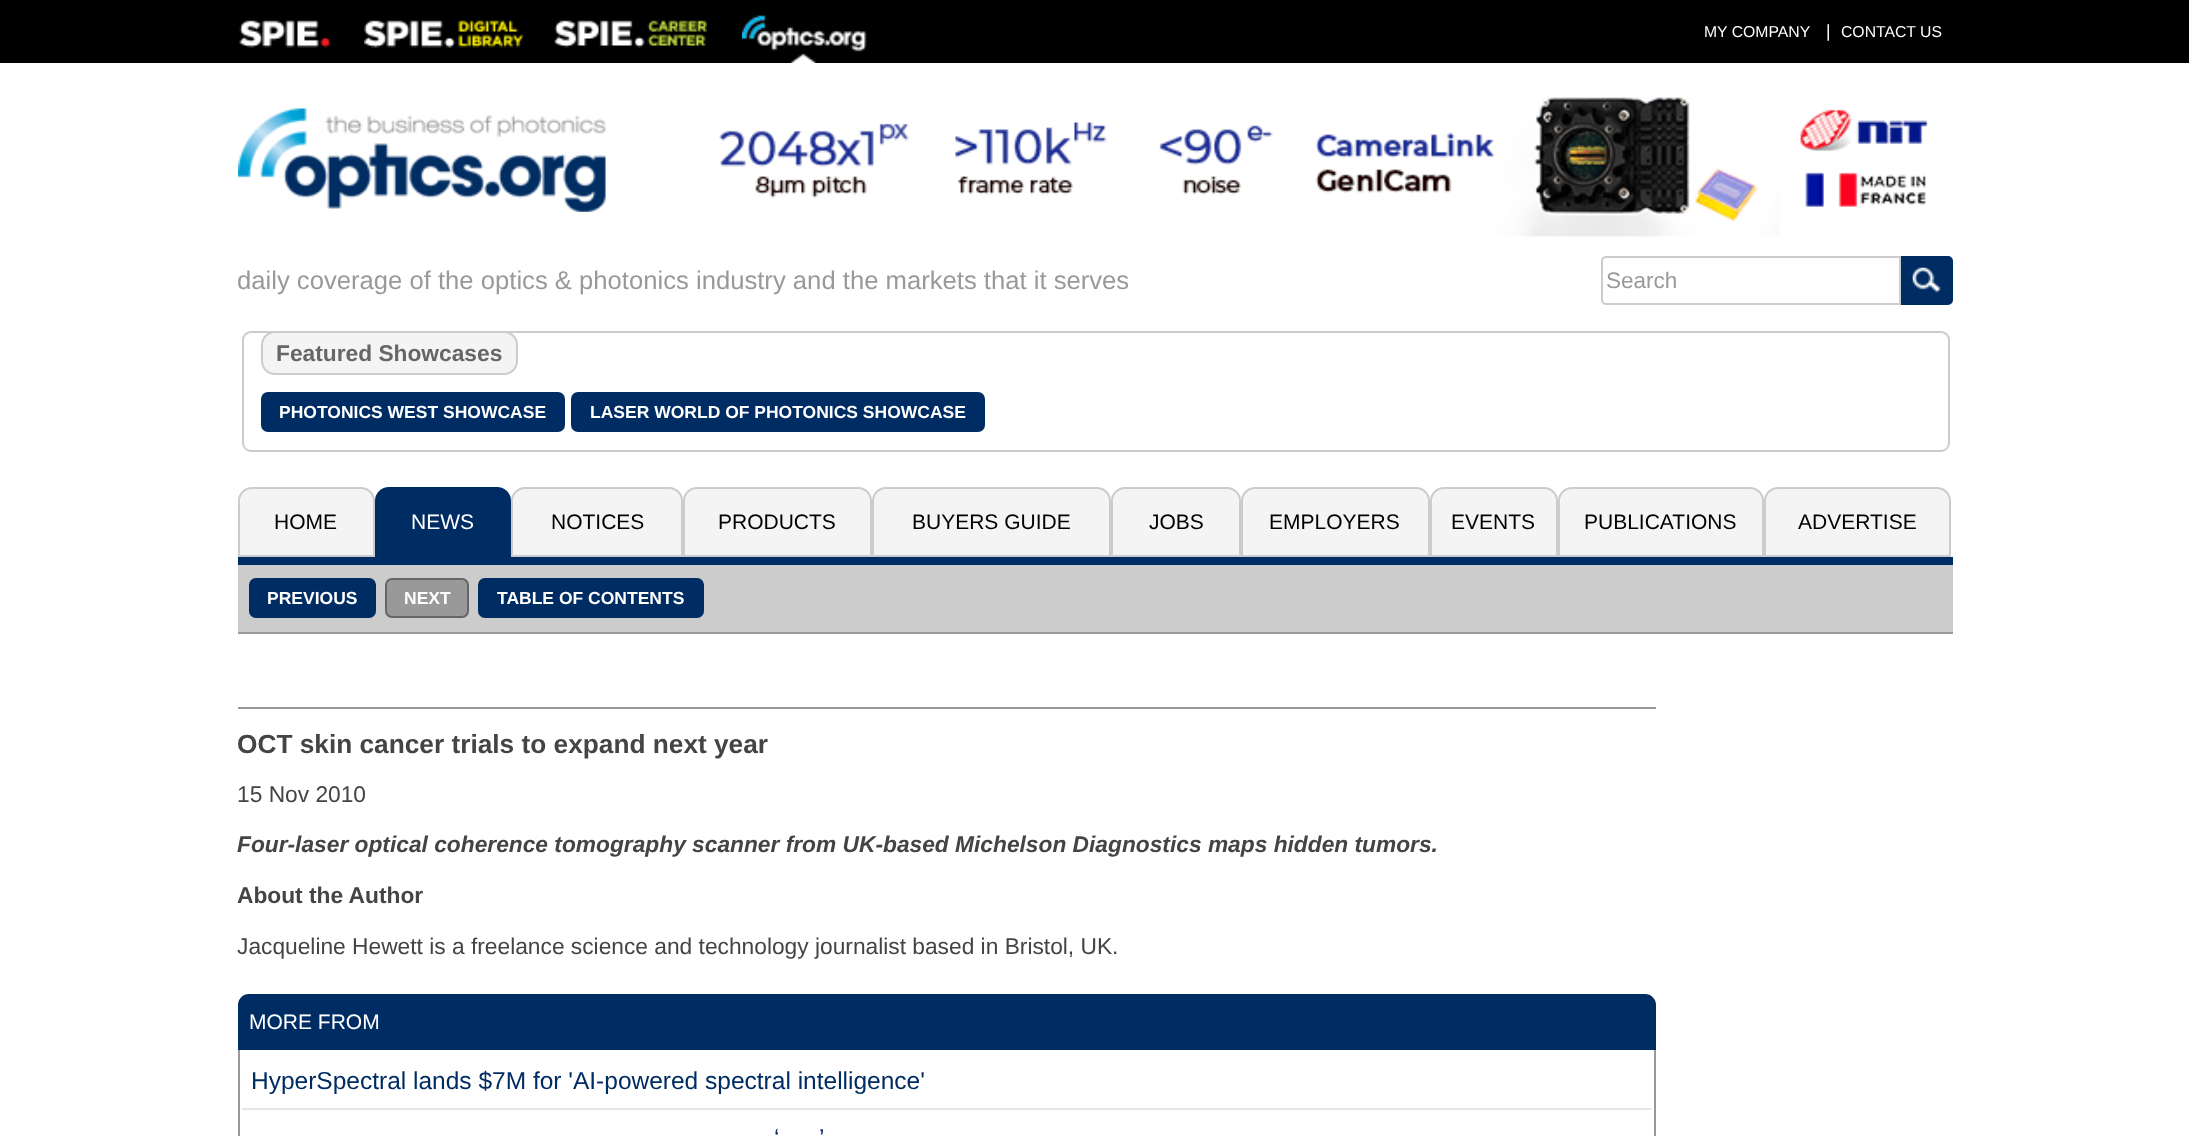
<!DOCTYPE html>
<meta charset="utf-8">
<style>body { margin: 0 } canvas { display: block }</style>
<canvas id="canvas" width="2189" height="1136"></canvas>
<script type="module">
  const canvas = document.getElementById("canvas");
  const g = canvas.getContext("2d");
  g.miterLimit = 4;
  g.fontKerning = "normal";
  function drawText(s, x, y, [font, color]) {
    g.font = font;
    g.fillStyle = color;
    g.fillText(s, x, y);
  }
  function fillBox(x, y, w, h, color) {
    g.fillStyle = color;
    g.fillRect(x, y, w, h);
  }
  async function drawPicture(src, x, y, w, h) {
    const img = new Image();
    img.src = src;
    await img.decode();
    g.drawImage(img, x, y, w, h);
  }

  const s1 = ["15.75px Liberation Sans", "#FFFFFF"];
  const s2 = ["17.5px Liberation Sans", "#FFFFFF"];
  const s3 = ["25.65px Liberation Sans", "#999999"];
  const s4 = ["22.5px Liberation Sans", "#999999"];
  const s5 = ["bold 22.75px Liberation Sans", "#666666"];
  const s6 = ["bold 17.5px Liberation Sans", "#FFFFFF"];
  const s7 = ["21px Liberation Sans", "#000000"];
  const s8 = ["21px Liberation Sans", "#FFFFFF"];
  const s9 = ["bold 26.25px Liberation Sans", "#444444"];
  const s10 = ["22.75px Liberation Sans", "#444444"];
  const s11 = ["italic bold 22.75px Liberation Sans", "#444444"];
  const s12 = ["bold 22.75px Liberation Sans", "#444444"];
  const s13 = ["24.5px Liberation Sans", "#002C64"];

  fillBox(0, 0, 2189, 1136, "#FFFFFF");
  fillBox(0, 0, 2189, 63, "#000000");
  await drawPicture("pic1.png", 239, 20, 92, 28);
  await drawPicture("pic2.png", 364, 20, 160, 28);
  await drawPicture("pic3.png", 554, 20, 153, 28);
  await drawPicture("pic4.png", 742, 15, 125, 48);
  drawText("MY COMPANY", 1704, 37, s1);
  drawText("|", 1826, 37, s2);
  drawText("CONTACT US", 1841, 37, s1);
  await drawPicture("pic5.png", 238, 108, 368, 104);
  await drawPicture("pic6.png", 719, 97, 1209, 140);
  drawText("daily coverage of the optics & photonics industry and the markets that it serves", 237, 289, s3);
  g.beginPath();
  g.roundRect(1602, 257, 298, 47, [4, 0, 0, 4]);
  g.strokeStyle = "#CCCCCC";
  g.lineWidth = 2;
  g.stroke();
  drawText("Search", 1606, 288, s4);
  g.beginPath();
  g.roundRect(1902, 257, 50, 47, [0, 4, 4, 0]);
  g.strokeStyle = "#002C64";
  g.stroke();
  fillBox(1903, 258, 48, 45, "#002C64");
  await drawPicture("pic7.png", 1912, 267, 29, 26);
  g.beginPath();
  g.roundRect(243, 332, 1706, 119, 8);
  g.strokeStyle = "#CCCCCC";
  g.stroke();
  g.fillStyle = "#F4F4F4";
  g.beginPath();
  g.roundRect(262, 332, 255, 42, 13);
  g.fill();
  g.stroke();
  drawText("Featured Showcases", 276, 361, s5);
  g.fillStyle = "#002C64";
  g.beginPath();
  g.roundRect(262, 393, 302, 38, 6);
  g.fill();
  g.strokeStyle = "#002C64";
  g.stroke();
  drawText("PHOTONICS WEST SHOWCASE", 279, 418, s6);
  g.fillStyle = "#002C64";
  g.beginPath();
  g.roundRect(572, 393, 412, 38, 6);
  g.fill();
  g.stroke();
  drawText("LASER WORLD OF PHOTONICS SHOWCASE", 590, 418, s6);
  fillBox(238, 557, 1715, 8, "#002C64");
  g.fillStyle = "#F4F4F4";
  g.beginPath();
  g.roundRect(239, 488, 135, 68, [13, 13, 0, 0]);
  g.fill();
  g.strokeStyle = "#CCCCCC";
  g.stroke();
  drawText("HOME", 274, 529, s7);
  g.fillStyle = "#002C64";
  g.beginPath();
  g.roundRect(376, 488, 134, 68, [13, 13, 0, 0]);
  g.fill();
  g.strokeStyle = "#002C64";
  g.stroke();
  drawText("NEWS", 411, 529, s8);
  g.fillStyle = "#F4F4F4";
  g.beginPath();
  g.roundRect(512, 488, 170, 68, [13, 13, 0, 0]);
  g.fill();
  g.strokeStyle = "#CCCCCC";
  g.stroke();
  drawText("NOTICES", 551, 529, s7);
  g.fillStyle = "#F4F4F4";
  g.beginPath();
  g.roundRect(684, 488, 187, 68, [13, 13, 0, 0]);
  g.fill();
  g.stroke();
  drawText("PRODUCTS", 718, 529, s7);
  g.fillStyle = "#F4F4F4";
  g.beginPath();
  g.roundRect(873, 488, 237, 68, [13, 13, 0, 0]);
  g.fill();
  g.stroke();
  drawText("BUYERS GUIDE", 912, 529, s7);
  g.fillStyle = "#F4F4F4";
  g.beginPath();
  g.roundRect(1112, 488, 128, 68, [13, 13, 0, 0]);
  g.fill();
  g.stroke();
  drawText("JOBS", 1149, 529, s7);
  g.fillStyle = "#F4F4F4";
  g.beginPath();
  g.roundRect(1242, 488, 187, 68, [13, 13, 0, 0]);
  g.fill();
  g.stroke();
  drawText("EMPLOYERS", 1269, 529, s7);
  g.fillStyle = "#F4F4F4";
  g.beginPath();
  g.roundRect(1431, 488, 126, 68, [13, 13, 0, 0]);
  g.fill();
  g.stroke();
  drawText("EVENTS", 1451, 529, s7);
  g.fillStyle = "#F4F4F4";
  g.beginPath();
  g.roundRect(1559, 488, 204, 68, [13, 13, 0, 0]);
  g.fill();
  g.stroke();
  drawText("PUBLICATIONS", 1584, 529, s7);
  g.fillStyle = "#F4F4F4";
  g.beginPath();
  g.roundRect(1765, 488, 185, 68, [13, 13, 0, 0]);
  g.fill();
  g.stroke();
  drawText("ADVERTISE", 1798, 529, s7);
  fillBox(238, 565, 1715, 67, "#CCCCCC");
  fillBox(238, 632, 1715, 2, "#999999");
  g.fillStyle = "#002C64";
  g.beginPath();
  g.roundRect(250, 579, 125, 38, 6);
  g.fill();
  g.strokeStyle = "#002C64";
  g.stroke();
  drawText("PREVIOUS", 267, 604, s6);
  g.fillStyle = "#999999";
  g.beginPath();
  g.roundRect(386, 579, 82, 38, 6);
  g.fill();
  g.strokeStyle = "#666666";
  g.stroke();
  drawText("NEXT", 404, 604, s6);
  g.fillStyle = "#002C64";
  g.beginPath();
  g.roundRect(479, 579, 224, 38, 6);
  g.fill();
  g.strokeStyle = "#002C64";
  g.stroke();
  drawText("TABLE OF CONTENTS", 497, 604, s6);
  fillBox(238, 707, 1418, 2, "#999999");
  drawText("OCT skin cancer trials to expand next year", 237, 753, s9);
  drawText("15 Nov 2010", 237, 802, s10);
  drawText("Four-laser optical coherence tomography scanner from UK-based Michelson Diagnostics maps hidden tumors.", 237, 852, s11);
  drawText("About the Author", 237, 903, s12);
  drawText("Jacqueline Hewett is a freelance science and technology journalist based in Bristol, UK.", 237, 954, s10);
  g.fillStyle = "#002C64";
  g.beginPath();
  g.roundRect(239, 995, 1416, 54, [10, 10, 0, 0]);
  g.fill();
  g.stroke();
  drawText("MORE FROM", 249, 1029, s8);
  g.fillStyle = "#999999";
  g.beginPath();
  g.moveTo(238, 1050);
  g.lineTo(1656, 1050);
  g.lineTo(1656, 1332);
  g.bezierCurveTo(1656, 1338, 1651, 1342, 1645, 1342);
  g.lineTo(248, 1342);
  g.bezierCurveTo(243, 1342, 238, 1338, 238, 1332);
  g.closePath();
  g.moveTo(240, 1050);
  g.lineTo(1654, 1050);
  g.lineTo(1654, 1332);
  g.bezierCurveTo(1654, 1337, 1650, 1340, 1645, 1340);
  g.lineTo(248, 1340);
  g.bezierCurveTo(244, 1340, 240, 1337, 240, 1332);
  g.closePath();
  g.fill("evenodd");
  drawText("HyperSpectral lands $7M for 'AI-powered spectral intelligence'", 251, 1089, s13);
  fillBox(242, 1108, 1410, 2, "#E6E6E6");
  drawText("‘", 774, 1146, s13);
  drawText("’", 819, 1146, s13);
</script>
